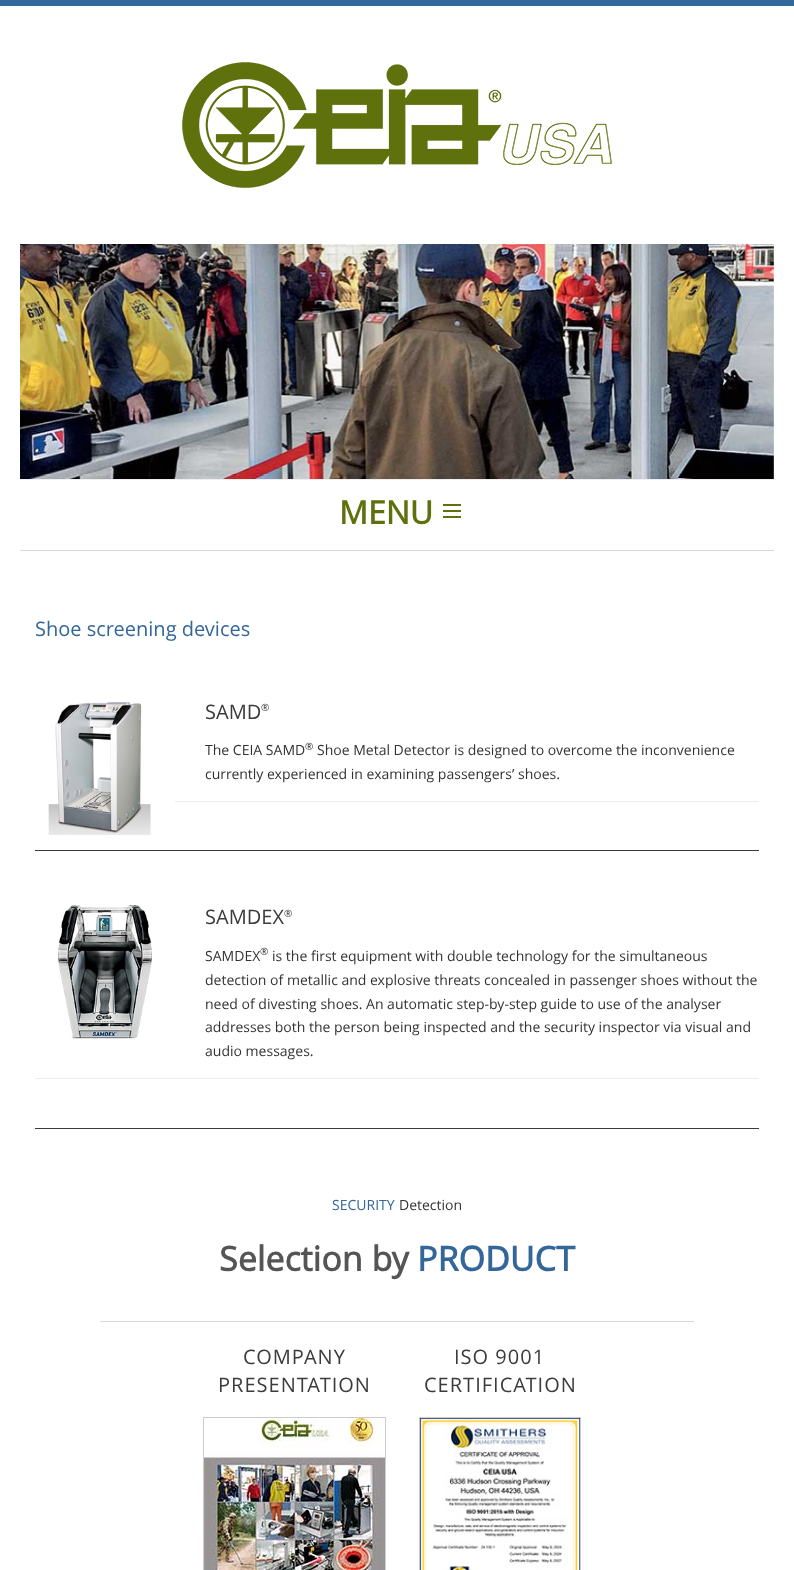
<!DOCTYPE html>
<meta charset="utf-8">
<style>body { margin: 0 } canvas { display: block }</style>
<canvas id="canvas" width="794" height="1570"></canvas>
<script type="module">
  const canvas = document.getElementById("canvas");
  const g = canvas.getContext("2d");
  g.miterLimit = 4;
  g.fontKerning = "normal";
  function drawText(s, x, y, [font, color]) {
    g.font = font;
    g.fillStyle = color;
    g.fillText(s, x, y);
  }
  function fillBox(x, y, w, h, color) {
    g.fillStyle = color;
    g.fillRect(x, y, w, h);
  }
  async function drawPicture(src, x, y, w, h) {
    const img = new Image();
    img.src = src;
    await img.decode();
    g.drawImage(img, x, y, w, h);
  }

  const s1 = ["bold 32px Open Sans", "#5F710D"];
  const s2 = ["20px Open Sans", "#336699"];
  const s3 = ["20px Open Sans", "#3B3B3B"];
  const s4 = ["10px Open Sans", "#3B3B3B"];
  const s5 = ["14px Open Sans", "#333333"];
  const s6 = ["10px Open Sans", "#333333"];
  const s7 = ["14px Open Sans", "#336699"];
  const s8 = ["bold 34px Open Sans", "#555555"];
  const s9 = ["bold 34px Open Sans", "#336699"];

  fillBox(0, 0, 794, 1570, "#FFFFFF");
  fillBox(0, 0, 794, 6, "#336699");
  await drawPicture("pic1.png", 182, 62, 430, 126);
  fillBox(20, 244, 754, 236, "#EFEFEF");
  await drawPicture("pic2.png", 20, 244, 754, 235);
  fillBox(443, 516, 18, 2, "#5F710D");
  fillBox(443, 510, 18, 2, "#5F710D");
  fillBox(443, 504, 18, 2, "#5F710D");
  drawText("MENU", 339, 524, s1);
  fillBox(20, 550, 754, 1, "#D8D8D8");
  drawText("Shoe screening devices", 35, 636, s2);
  await drawPicture("pic3.png", 35, 702, 140, 133);
  drawText("SAMD", 205, 719, s3);
  drawText("®", 261, 711, s4);
  drawText("The CEIA SAMD", 205, 755, s5);
  drawText("®", 305, 750, s6);
  drawText("Shoe Metal Detector is designed to overcome the inconvenience", 317, 755, s5);
  drawText("currently experienced in examining passengers’ shoes.", 205, 779, s5);
  fillBox(175, 801, 584, 1, "#ECECEC");
  fillBox(35, 850, 724, 1, "#3B3B3B");
  await drawPicture("pic4.png", 58, 905, 94, 134);
  drawText("SAMDEX", 205, 924, s3);
  drawText("®", 284, 917, s4);
  drawText("SAMDEX", 205, 961, s5);
  drawText("®", 260, 955, s6);
  drawText("is the first equipment with double technology for the simultaneous", 272, 961, s5);
  drawText("detection of metallic and explosive threats concealed in passenger shoes without the", 205, 985, s5);
  drawText("need of divesting shoes. An automatic step-by-step guide to use of the analyser", 205, 1009, s5);
  drawText("addresses both the person being inspected and the security inspector via visual and", 205, 1032, s5);
  drawText("audio messages.", 205, 1056, s5);
  fillBox(35, 1078, 724, 1, "#ECECEC");
  fillBox(35, 1128, 724, 1, "#3B3B3B");
  drawText("SECURITY", 332, 1210, s7);
  drawText("Detection", 399, 1210, s5);
  drawText("Selection by", 219, 1271, s8);
  drawText("PRODUCT", 417, 1271, s9);
  fillBox(100, 1321, 594, 1, "#D8D8D8");
  g.letterSpacing = "1px";
  drawText("COMPANY", 243, 1364, s3);
  drawText("PRESENTATION", 218, 1392, s3);
  g.strokeStyle = "#CCCCCC";
  g.strokeRect(203.5, 1417.5, 182, 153);
  await drawPicture("pic5.png", 204, 1418, 181, 152);
  drawText("ISO 9001", 454, 1364, s3);
  drawText("CERTIFICATION", 424, 1392, s3);
  g.strokeRect(419.5, 1417.5, 161, 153);
  await drawPicture("pic6.png", 420, 1418, 160, 152);
</script>
